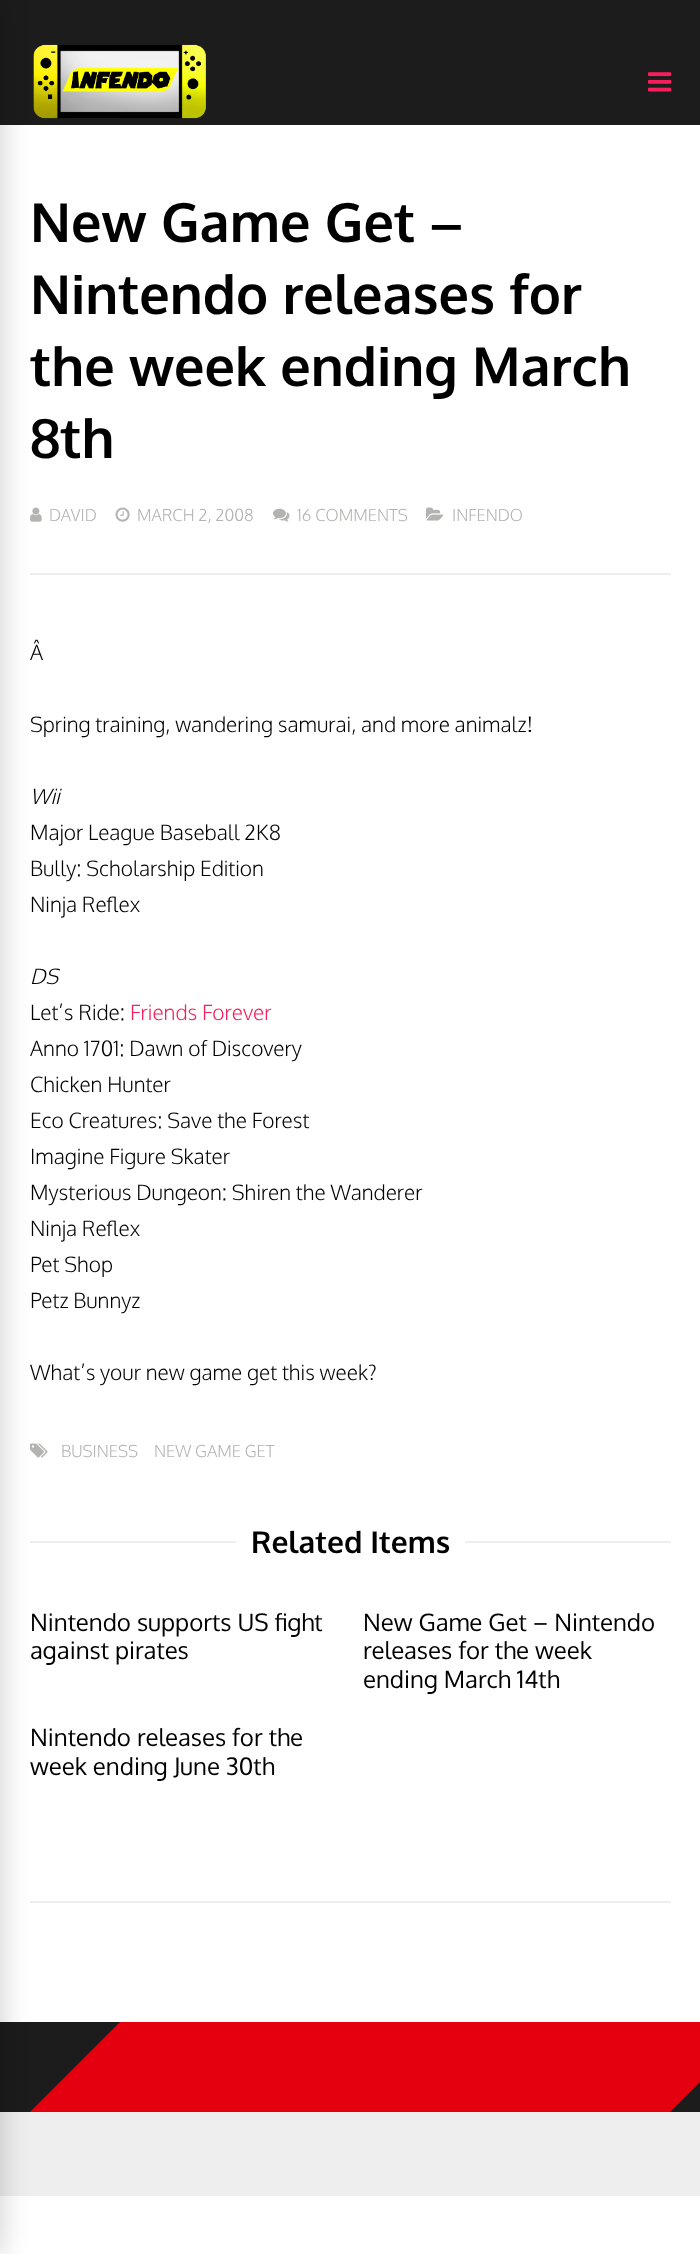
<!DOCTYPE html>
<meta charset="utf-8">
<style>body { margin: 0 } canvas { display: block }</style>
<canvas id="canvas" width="700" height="2254"></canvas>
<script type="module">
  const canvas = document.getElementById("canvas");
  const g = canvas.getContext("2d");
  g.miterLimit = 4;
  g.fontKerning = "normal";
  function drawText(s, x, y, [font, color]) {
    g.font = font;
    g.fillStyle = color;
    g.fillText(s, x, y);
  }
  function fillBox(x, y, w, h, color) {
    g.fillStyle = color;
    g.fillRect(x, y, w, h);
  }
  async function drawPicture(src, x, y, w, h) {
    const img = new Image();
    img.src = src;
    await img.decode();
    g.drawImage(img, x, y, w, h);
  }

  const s1 = ["bold 54px Oxygen", "#000000"];
  const s2 = ["300 16.5px Oxygen", "#B3B3B1"];
  const s3 = ["300 21px Oxygen", "#000000"];
  const s4 = ["italic 300 21px Oxygen", "#000000"];
  const s5 = ["300 21px Oxygen", "#F61E5B"];
  const s6 = ["bold 30px Oxygen", "#000000"];
  const s7 = ["24px Oxygen", "#000000"];

  fillBox(0, 0, 700, 2254, "#FFFFFF");
  fillBox(0, 0, 700, 125, "#1C1C1C");
  await drawPicture("pic1.png", 33, 44, 173, 75);
  fillBox(30, 573, 641, 2, "#EEEEEE");
  await drawPicture("pic3.png", 30, 507, 12, 15);
  await drawPicture("pic7.png", 30, 1443, 18, 15);
  fillBox(30, 1541, 641, 2, "#EEEEEE");
  fillBox(30, 1901, 641, 2, "#EEEEEE");
  fillBox(0, 2022, 700, 90, "#1C1C1C");
  g.fillStyle = "#E4000F";
  g.beginPath();
  g.moveTo(120, 2022);
  g.lineTo(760, 2022);
  g.lineTo(670, 2112);
  g.lineTo(30, 2112);
  g.closePath();
  g.fill();
  fillBox(0, 2112, 700, 84, "#EEEEEE");
  g.fillStyle = "rgba(0, 0, 0, 0.2)";
  g.filter = "blur(15px)";
  g.beginPath();
  g.rect(-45, 0, 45, 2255);
  g.fill();
  g.filter = "none";
  await drawPicture("pic2.png", 648, 72, 24, 20);
  drawText("New Game Get –", 30, 242, s1);
  drawText("Nintendo releases for", 30, 314, s1);
  drawText("the week ending March", 30, 386, s1);
  drawText("8th", 30, 458, s1);
  drawText("DAVID", 49, 521, s2);
  await drawPicture("pic4.png", 115, 507, 15, 15);
  drawText("MARCH 2, 2008", 137, 521, s2);
  await drawPicture("pic5.png", 273, 508, 17, 14);
  drawText("16 COMMENTS", 297, 521, s2);
  await drawPicture("pic6.png", 426, 507, 18, 14);
  drawText("INFENDO", 452, 521, s2);
  drawText("Â", 30, 660, s3);
  drawText("Spring training, wandering samurai, and more animalz!", 30, 732, s3);
  drawText("Wii", 30, 804, s4);
  drawText("Major League Baseball 2K8", 30, 840, s3);
  drawText("Bully: Scholarship Edition", 30, 876, s3);
  drawText("Ninja Reflex", 30, 912, s3);
  drawText("DS", 30, 984, s4);
  drawText("Let’s Ride:", 30, 1020, s3);
  drawText("Friends Forever", 130, 1020, s5);
  drawText("Anno 1701: Dawn of Discovery", 30, 1056, s3);
  drawText("Chicken Hunter", 30, 1092, s3);
  drawText("Eco Creatures: Save the Forest", 30, 1128, s3);
  drawText("Imagine Figure Skater", 30, 1164, s3);
  drawText("Mysterious Dungeon: Shiren the Wanderer", 30, 1200, s3);
  drawText("Ninja Reflex", 30, 1236, s3);
  drawText("Pet Shop", 30, 1272, s3);
  drawText("Petz Bunnyz", 30, 1308, s3);
  drawText("What’s your new game get this week?", 30, 1380, s3);
  drawText("BUSINESS", 61, 1457, s2);
  drawText("NEW GAME GET", 154, 1457, s2);
  fillBox(236, 1541, 229, 2, "#FFFFFF");
  drawText("Related Items", 251, 1553, s6);
  drawText("Nintendo supports US fight", 30, 1631, s7);
  drawText("against pirates", 30, 1659, s7);
  drawText("New Game Get – Nintendo", 363, 1631, s7);
  drawText("releases for the week", 363, 1659, s7);
  drawText("ending March 14th", 363, 1688, s7);
  drawText("Nintendo releases for the", 30, 1746, s7);
  drawText("week ending June 30th", 30, 1775, s7);
</script>
